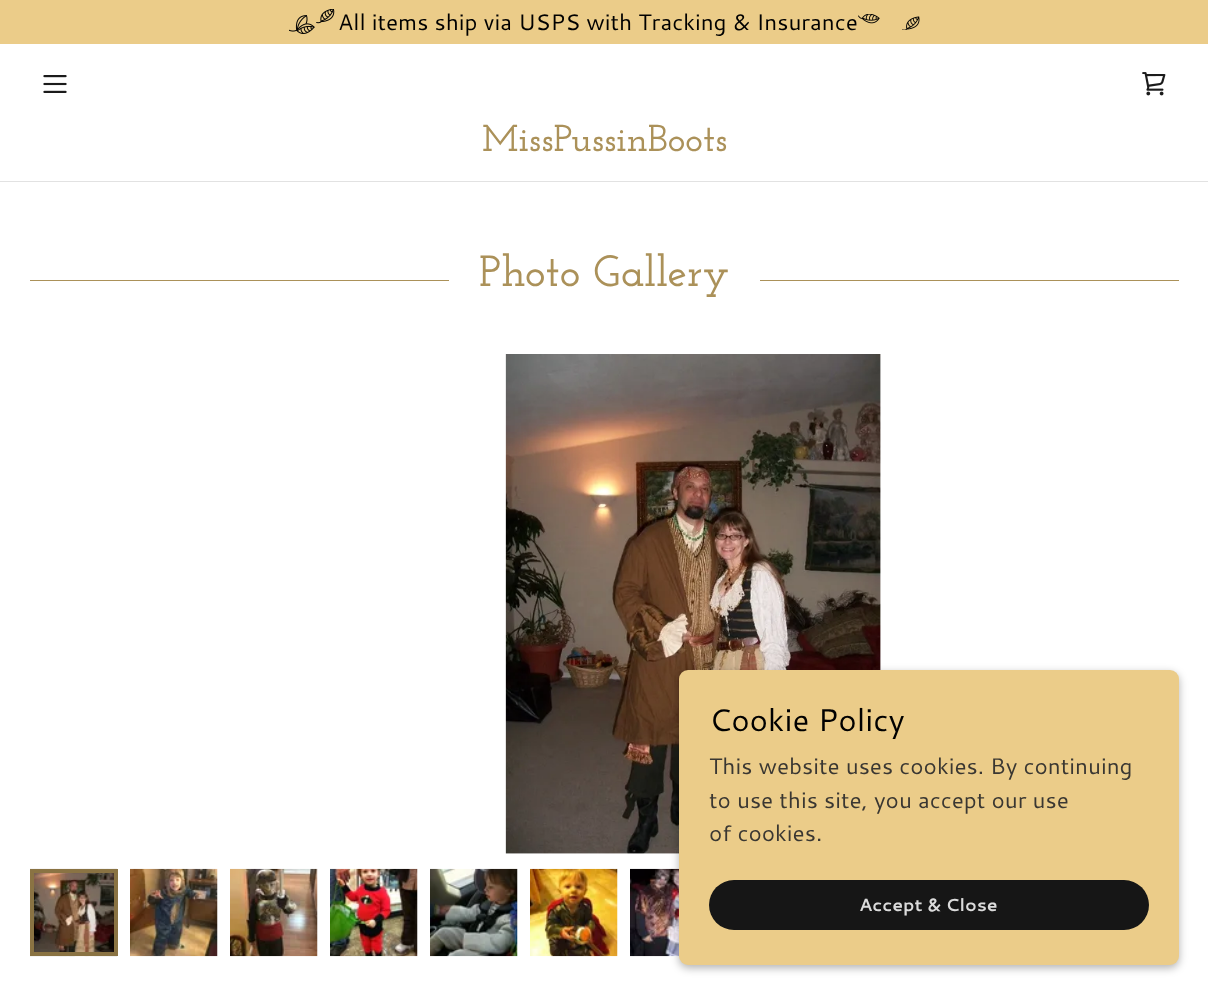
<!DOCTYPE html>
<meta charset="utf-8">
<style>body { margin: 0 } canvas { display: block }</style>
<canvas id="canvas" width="1208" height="994"></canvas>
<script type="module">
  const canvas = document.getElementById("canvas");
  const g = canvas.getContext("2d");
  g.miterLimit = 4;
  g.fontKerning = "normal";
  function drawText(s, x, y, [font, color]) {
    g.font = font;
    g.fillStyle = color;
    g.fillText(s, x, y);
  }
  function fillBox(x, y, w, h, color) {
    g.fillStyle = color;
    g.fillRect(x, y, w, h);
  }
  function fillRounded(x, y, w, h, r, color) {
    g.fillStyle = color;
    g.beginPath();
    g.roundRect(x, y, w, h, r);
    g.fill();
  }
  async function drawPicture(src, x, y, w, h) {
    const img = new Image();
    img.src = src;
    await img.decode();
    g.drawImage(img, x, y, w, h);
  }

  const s1 = ["22.5px Cantarell", "#000000"];
  const s2 = ["100 37.5px Josefin Slab", "#AB9159"];
  const s3 = ["100 43.75px Josefin Slab", "#AB9159"];
  const s4 = ["31.25px Cantarell", "#000000"];
  const s5 = ["22.5px Cantarell", "#3A3732"];
  const s6 = ["bold 17.5px Cantarell", "#DBDBDB"];

  fillBox(0, 0, 1208, 994, "#FFFFFF");
  fillBox(0, 0, 1208, 44, "#EBCC89");
  await drawPicture("pic1.png", 289, 9, 46, 25);
  drawText("All items ship via USPS with Tracking & Insurance", 338, 30, s1);
  await drawPicture("pic2.png", 858, 14, 62, 16);
  await drawPicture("pic3.png", 43, 75, 24, 18);
  await drawPicture("pic4.png", 1142, 72, 24, 24);
  drawText("MissPussinBoots", 482, 151, s2);
  fillBox(0, 181, 1208, 1, "#E2E2E2");
  fillBox(30, 280, 419, 1, "#AB9159");
  drawText("Photo Gallery", 479, 286, s3);
  fillBox(760, 280, 419, 1, "#AB9159");
  await drawPicture("pic5.png", 505, 354, 376, 500);
  await drawPicture("pic6.png", 30, 868, 87, 89);
  g.strokeStyle = "#8A7343";
  g.lineWidth = 4;
  g.strokeRect(32, 871, 84, 83);
  await drawPicture("pic7.png", 130, 868, 88, 89);
  await drawPicture("pic8.png", 230, 868, 88, 89);
  await drawPicture("pic9.png", 330, 868, 88, 89);
  await drawPicture("pic10.png", 430, 868, 88, 89);
  await drawPicture("pic11.png", 530, 868, 88, 89);
  await drawPicture("pic12.png", 630, 868, 50, 89);
  g.fillStyle = "rgba(0, 0, 0, 0.3)";
  g.filter = "blur(4px)";
  g.beginPath();
  g.roundRect(679, 673, 500, 295, 9);
  g.fill();
  g.filter = "none";
  fillRounded(679, 670, 500, 295, 9, "#EBCC89");
  drawText("Cookie Policy", 709, 731, s4);
  drawText("This website uses cookies. By continuing", 709, 774, s5);
  drawText("to use this site, you accept our use", 709, 808, s5);
  drawText("of cookies.", 709, 841, s5);
  fillRounded(709, 880, 440, 50, 25, "#161616");
  drawText("Accept & Close", 859, 911, s6);
</script>
